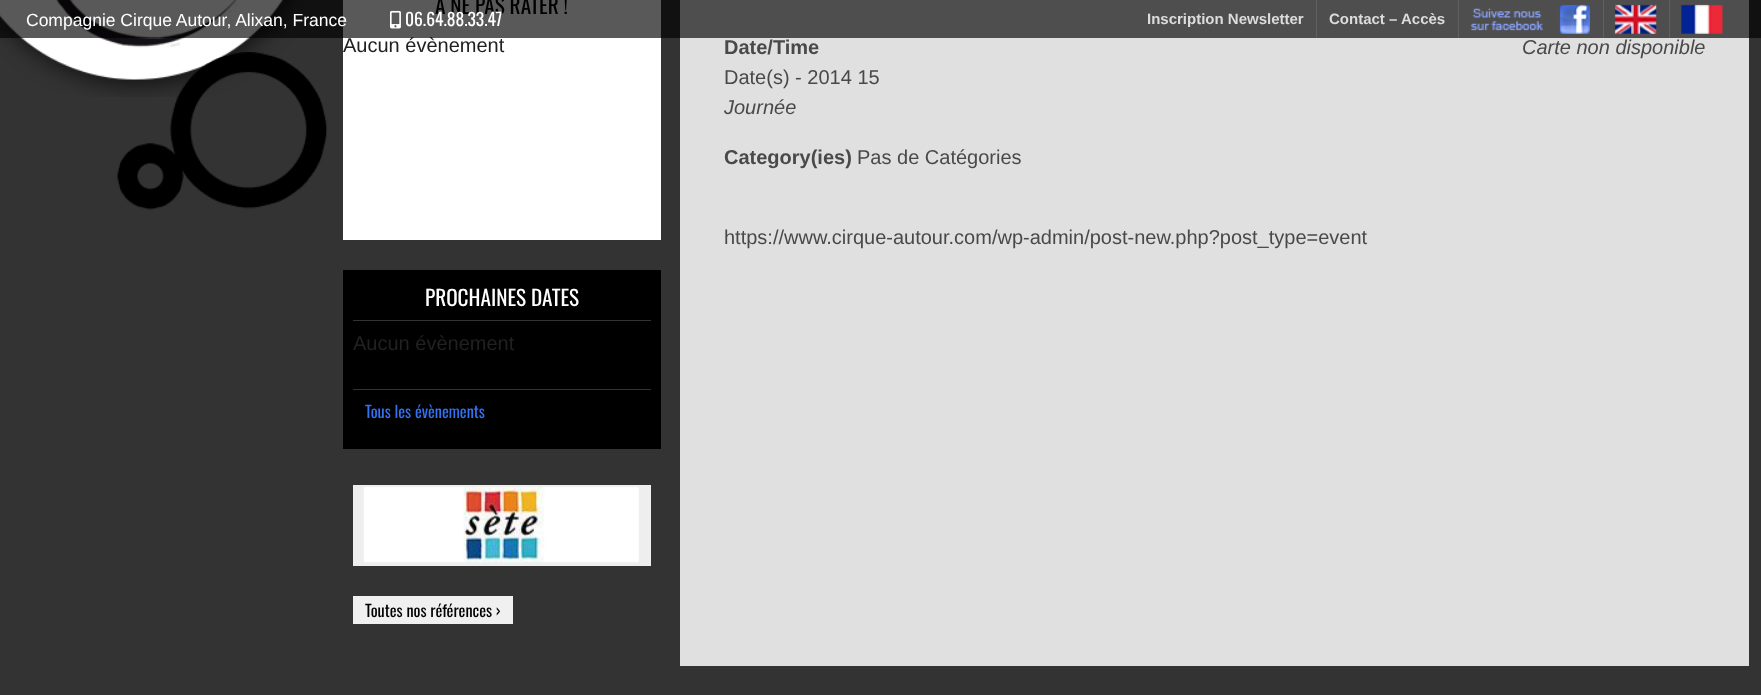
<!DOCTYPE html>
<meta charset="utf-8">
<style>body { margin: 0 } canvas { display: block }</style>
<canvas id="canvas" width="1761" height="695"></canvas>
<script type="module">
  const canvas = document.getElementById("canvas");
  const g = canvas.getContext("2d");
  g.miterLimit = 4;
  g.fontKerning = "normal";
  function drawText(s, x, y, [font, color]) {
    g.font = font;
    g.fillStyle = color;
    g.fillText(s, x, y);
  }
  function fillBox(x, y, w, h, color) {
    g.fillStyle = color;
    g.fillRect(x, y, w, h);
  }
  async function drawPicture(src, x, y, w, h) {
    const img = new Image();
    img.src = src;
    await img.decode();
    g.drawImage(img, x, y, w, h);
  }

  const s1 = ["21.25px Oswald", "#000000"];
  const s2 = ["20px Liberation Sans", "#212121"];
  const s3 = ["21.25px Oswald", "#FFFFFF"];
  const s4 = ["16.25px Oswald", "#3372F0"];
  const s5 = ["16.25px Oswald", "#000000"];
  const s6 = ["bold 20px Liberation Sans", "#494949"];
  const s7 = ["20px Liberation Sans", "#494949"];
  const s8 = ["italic 20px Liberation Sans", "#494949"];
  const s9 = ["17.5px Liberation Sans", "#FFFFFF"];
  const s10 = ["17.5px Oswald", "#FFFFFF"];
  const s11 = ["bold 15px Liberation Sans", "#DCDCDC"];

  fillBox(0, 0, 1761, 695, "#333333");
  fillBox(343, 0, 318, 240, "#FFFFFF");
  drawText("A NE PAS RATER !", 435, 14, s1);
  drawText("Aucun évènement", 343, 52, s2);
  fillBox(343, 270, 318, 179, "#000000");
  drawText("PROCHAINES DATES", 425, 306, s3);
  fillBox(353, 320, 298, 1, "#333333");
  drawText("Aucun évènement", 353, 350, s2);
  fillBox(353, 389, 298, 1, "#333333");
  drawText("Tous les évènements", 365, 418, s4);
  fillBox(353, 485, 298, 81, "#EEEEEE");
  await drawPicture("pic1.png", 363, 486, 276, 77);
  fillBox(353, 596, 160, 28, "#F0F0F0");
  drawText("Toutes nos références ›", 365, 617, s5);
  fillBox(680, 0, 1069, 666, "#E0E0E0");
  drawText("Date/Time", 724, 54, s6);
  drawText("Date(s) - 2014 15", 724, 84, s7);
  drawText("Journée", 724, 114, s8);
  drawText("Carte non disponible", 1522, 54, s8);
  drawText("Category(ies)", 724, 164, s6);
  drawText("Pas de Catégories", 857, 164, s7);
  drawText("https://www.cirque-autour.com/wp-admin/post-new.php?post_type=event", 724, 244, s7);
  await drawPicture("pic2.png", 0, 0, 303, 97);
  await drawPicture("pic3.png", 117, 52, 210, 158);
  fillBox(0, 0, 1761, 38, "rgba(0, 0, 0, 0.65)");
  drawText("Compagnie Cirque Autour, Alixan, France", 26, 26, s9);
  await drawPicture("pic4.png", 390, 10, 11, 19);
  drawText("06.64.88.33.47", 405, 26, s10);
  drawText("Inscription Newsletter", 1147, 24, s11);
  fillBox(1316, 0, 1, 38, "#606060");
  drawText("Contact – Accès", 1329, 24, s11);
  fillBox(1458, 0, 1, 38, "#606060");
  await drawPicture("pic5.png", 1471, 4, 119, 30);
  fillBox(1603, 0, 1, 38, "#606060");
  await drawPicture("pic6.png", 1614, 4, 43, 30);
  fillBox(1669, 0, 1, 38, "#606060");
  await drawPicture("pic7.png", 1681, 4, 42, 30);
</script>
